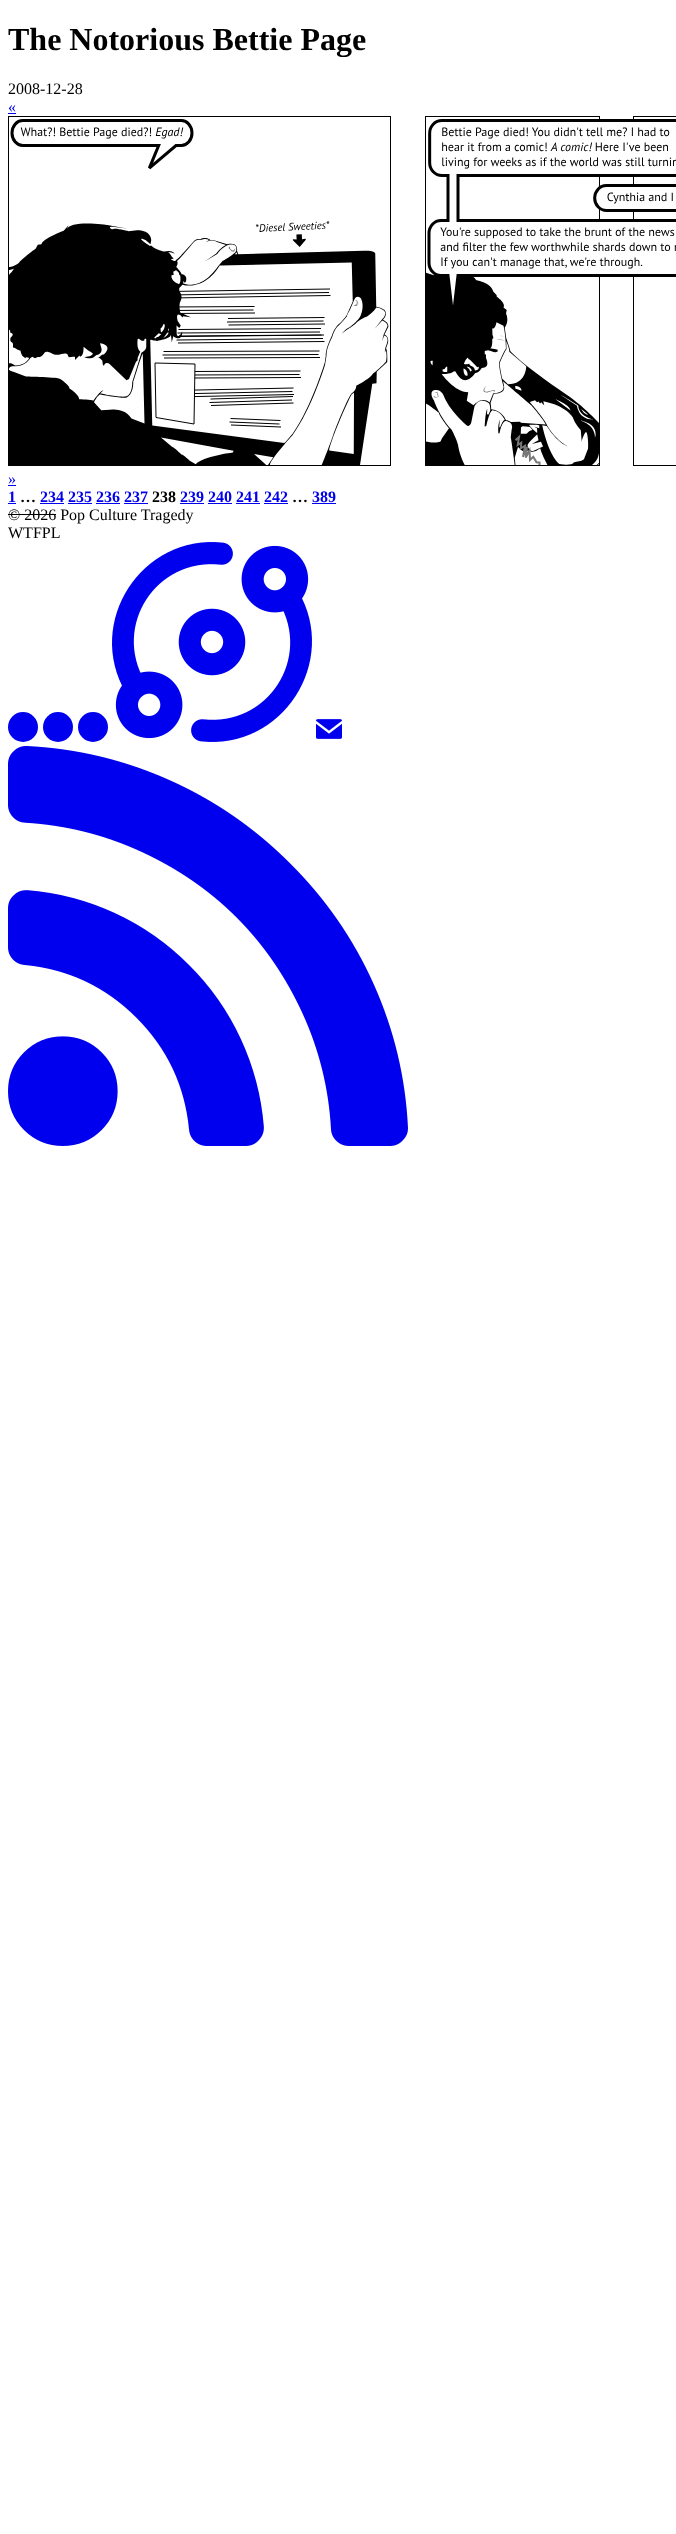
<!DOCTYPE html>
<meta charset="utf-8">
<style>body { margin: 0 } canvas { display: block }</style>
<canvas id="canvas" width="676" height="2534"></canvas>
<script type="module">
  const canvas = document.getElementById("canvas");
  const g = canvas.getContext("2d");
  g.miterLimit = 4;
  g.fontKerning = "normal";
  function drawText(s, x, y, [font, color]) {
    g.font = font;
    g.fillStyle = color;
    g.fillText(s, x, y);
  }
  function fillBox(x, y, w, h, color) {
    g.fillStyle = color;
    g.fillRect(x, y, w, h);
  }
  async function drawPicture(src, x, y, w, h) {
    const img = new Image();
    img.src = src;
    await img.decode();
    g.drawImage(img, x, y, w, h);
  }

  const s1 = ["bold 32px Liberation Serif", "#000000"];
  const s2 = ["16px Liberation Serif", "#000000"];
  const s3 = ["16px Liberation Serif", "#0000EE"];
  const s4 = ["bold 16px Liberation Serif", "#0000EE"];
  const s5 = ["bold 16px Liberation Serif", "#000000"];

  fillBox(0, 0, 676, 2534, "#FFFFFF");
  drawText("The Notorious Bettie Page", 8, 50, s1);
  drawText("2008-12-28", 8, 94, s2);
  drawText("«", 8, 112, s3);
  fillBox(8, 113, 8, 1, "#0000EE");
  await drawPicture("pic1.png", 8, 116, 668, 350);
  drawText("»", 8, 484, s3);
  fillBox(8, 485, 8, 1, "#0000EE");
  drawText("1", 8, 502, s4);
  fillBox(8, 503, 8, 1, "#0000EE");
  drawText("…", 20, 502, s5);
  drawText("234 235 236 237", 40, 502, s4);
  fillBox(40, 503, 24, 1, "#0000EE");
  drawText("238", 152, 502, s5);
  drawText("239 240 241 242", 180, 502, s4);
  fillBox(180, 503, 24, 1, "#0000EE");
  drawText("…", 292, 502, s5);
  drawText("389", 312, 502, s4);
  fillBox(312, 503, 24, 1, "#0000EE");
  fillBox(68, 503, 24, 1, "#0000EE");
  fillBox(96, 503, 24, 1, "#0000EE");
  fillBox(124, 503, 24, 1, "#0000EE");
  fillBox(208, 503, 24, 1, "#0000EE");
  fillBox(236, 503, 24, 1, "#0000EE");
  fillBox(264, 503, 24, 1, "#0000EE");
  drawText("© 2026 Pop Culture Tragedy", 8, 520, s2);
  fillBox(8, 514, 48, 1, "#000000");
  drawText("WTFPL", 8, 538, s2);
  g.fillStyle = "#0000EE";
  g.beginPath();
  g.arc(23, 727, 15, 0, Math.PI * 2);
  g.fill();
  g.beginPath();
  g.arc(58, 727, 15, 0, Math.PI * 2);
  g.fill();
  g.beginPath();
  g.arc(93, 727, 15, 0, Math.PI * 2);
  g.fill();
  await drawPicture("pic2.png", 112, 542, 200, 200);
  await drawPicture("pic3.png", 316, 719, 26, 20);
  await drawPicture("pic4.png", 8, 746, 400, 400);
</script>
